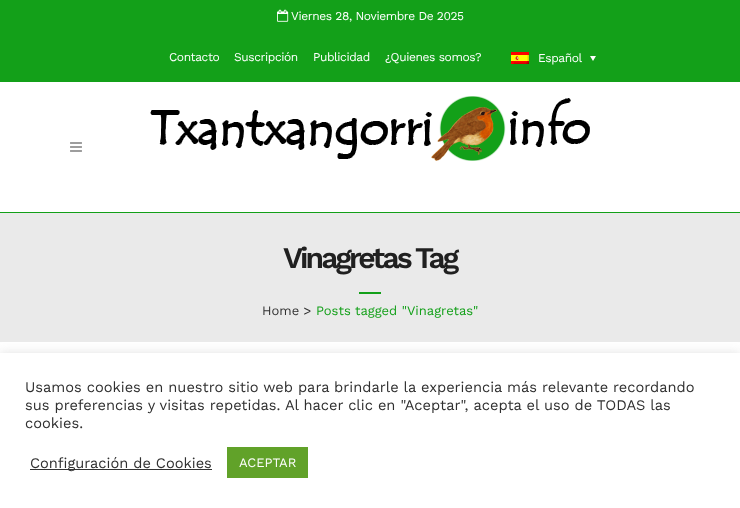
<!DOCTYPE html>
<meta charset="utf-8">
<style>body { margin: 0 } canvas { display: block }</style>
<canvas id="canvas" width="740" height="508"></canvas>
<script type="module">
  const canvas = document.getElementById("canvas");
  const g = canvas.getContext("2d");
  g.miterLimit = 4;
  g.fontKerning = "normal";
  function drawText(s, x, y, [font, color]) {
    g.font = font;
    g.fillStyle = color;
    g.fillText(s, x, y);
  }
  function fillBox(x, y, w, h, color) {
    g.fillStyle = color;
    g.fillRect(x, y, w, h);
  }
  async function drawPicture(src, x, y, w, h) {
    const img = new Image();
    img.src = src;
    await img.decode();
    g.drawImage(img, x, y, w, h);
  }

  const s1 = ["12px Work Sans", "#FFFFFF"];
  const s2 = ["600 30px Work Sans", "#202020"];
  const s3 = ["13px Work Sans", "#303030"];
  const s4 = ["13px Work Sans", "#13A019"];
  const s5 = ["14.65px Work Sans", "#303030"];
  const s6 = ["13px Work Sans", "#FFFFFF"];

  fillBox(0, 0, 740, 508, "#FFFFFF");
  fillBox(0, 0, 740, 82, "#13A019");
  await drawPicture("pic1.png", 277, 9, 12, 13);
  g.letterSpacing = "-0.4px";
  drawText("Viernes 28, Noviembre De 2025", 291, 20, s1);
  drawText("Contacto", 169, 61, s1);
  drawText("Suscripción", 234, 61, s1);
  drawText("Publicidad", 313, 61, s1);
  drawText("¿Quienes somos?", 385, 61, s1);
  await drawPicture("pic2.png", 511, 52, 18, 12);
  drawText("Español", 538, 62, s1);
  g.beginPath();
  g.moveTo(590, 56);
  g.lineTo(596, 56);
  g.lineTo(593, 61);
  g.closePath();
  g.fill();
  fillBox(0, 212, 740, 1, "#13A019");
  await drawPicture("pic3.png", 70, 142, 12, 10);
  await drawPicture("pic4.png", 150, 96, 440, 65);
  fillBox(0, 213, 740, 129, "#EAEAEA");
  g.letterSpacing = "-3px";
  drawText("Vinagretas Tag", 283, 268, s2);
  fillBox(359, 292, 22, 2, "#13A019");
  g.letterSpacing = "0px";
  drawText("Home >", 262, 315, s3);
  drawText("Posts tagged \"Vinagretas\"", 316, 315, s4);
  g.fillStyle = "rgba(172, 171, 171, 0.3)";
  g.filter = "blur(5px)";
  g.beginPath();
  g.rect(0, 352, 740, 155);
  g.fill();
  g.filter = "none";
  fillBox(0, 353, 740, 155, "#FFFFFF");
  drawText("Usamos cookies en nuestro sitio web para brindarle la experiencia más relevante recordando", 25, 392, s5);
  drawText("sus preferencias y visitas repetidas. Al hacer clic en \"Aceptar\", acepta el uso de TODAS las", 25, 410, s5);
  drawText("cookies.", 25, 428, s5);
  fillBox(30, 469, 182, 1, "#333333");
  drawText("Configuración de Cookies", 30, 468, s5);
  fillBox(227, 447, 81, 31, "#61A229");
  drawText("ACEPTAR", 239, 467, s6);
</script>
